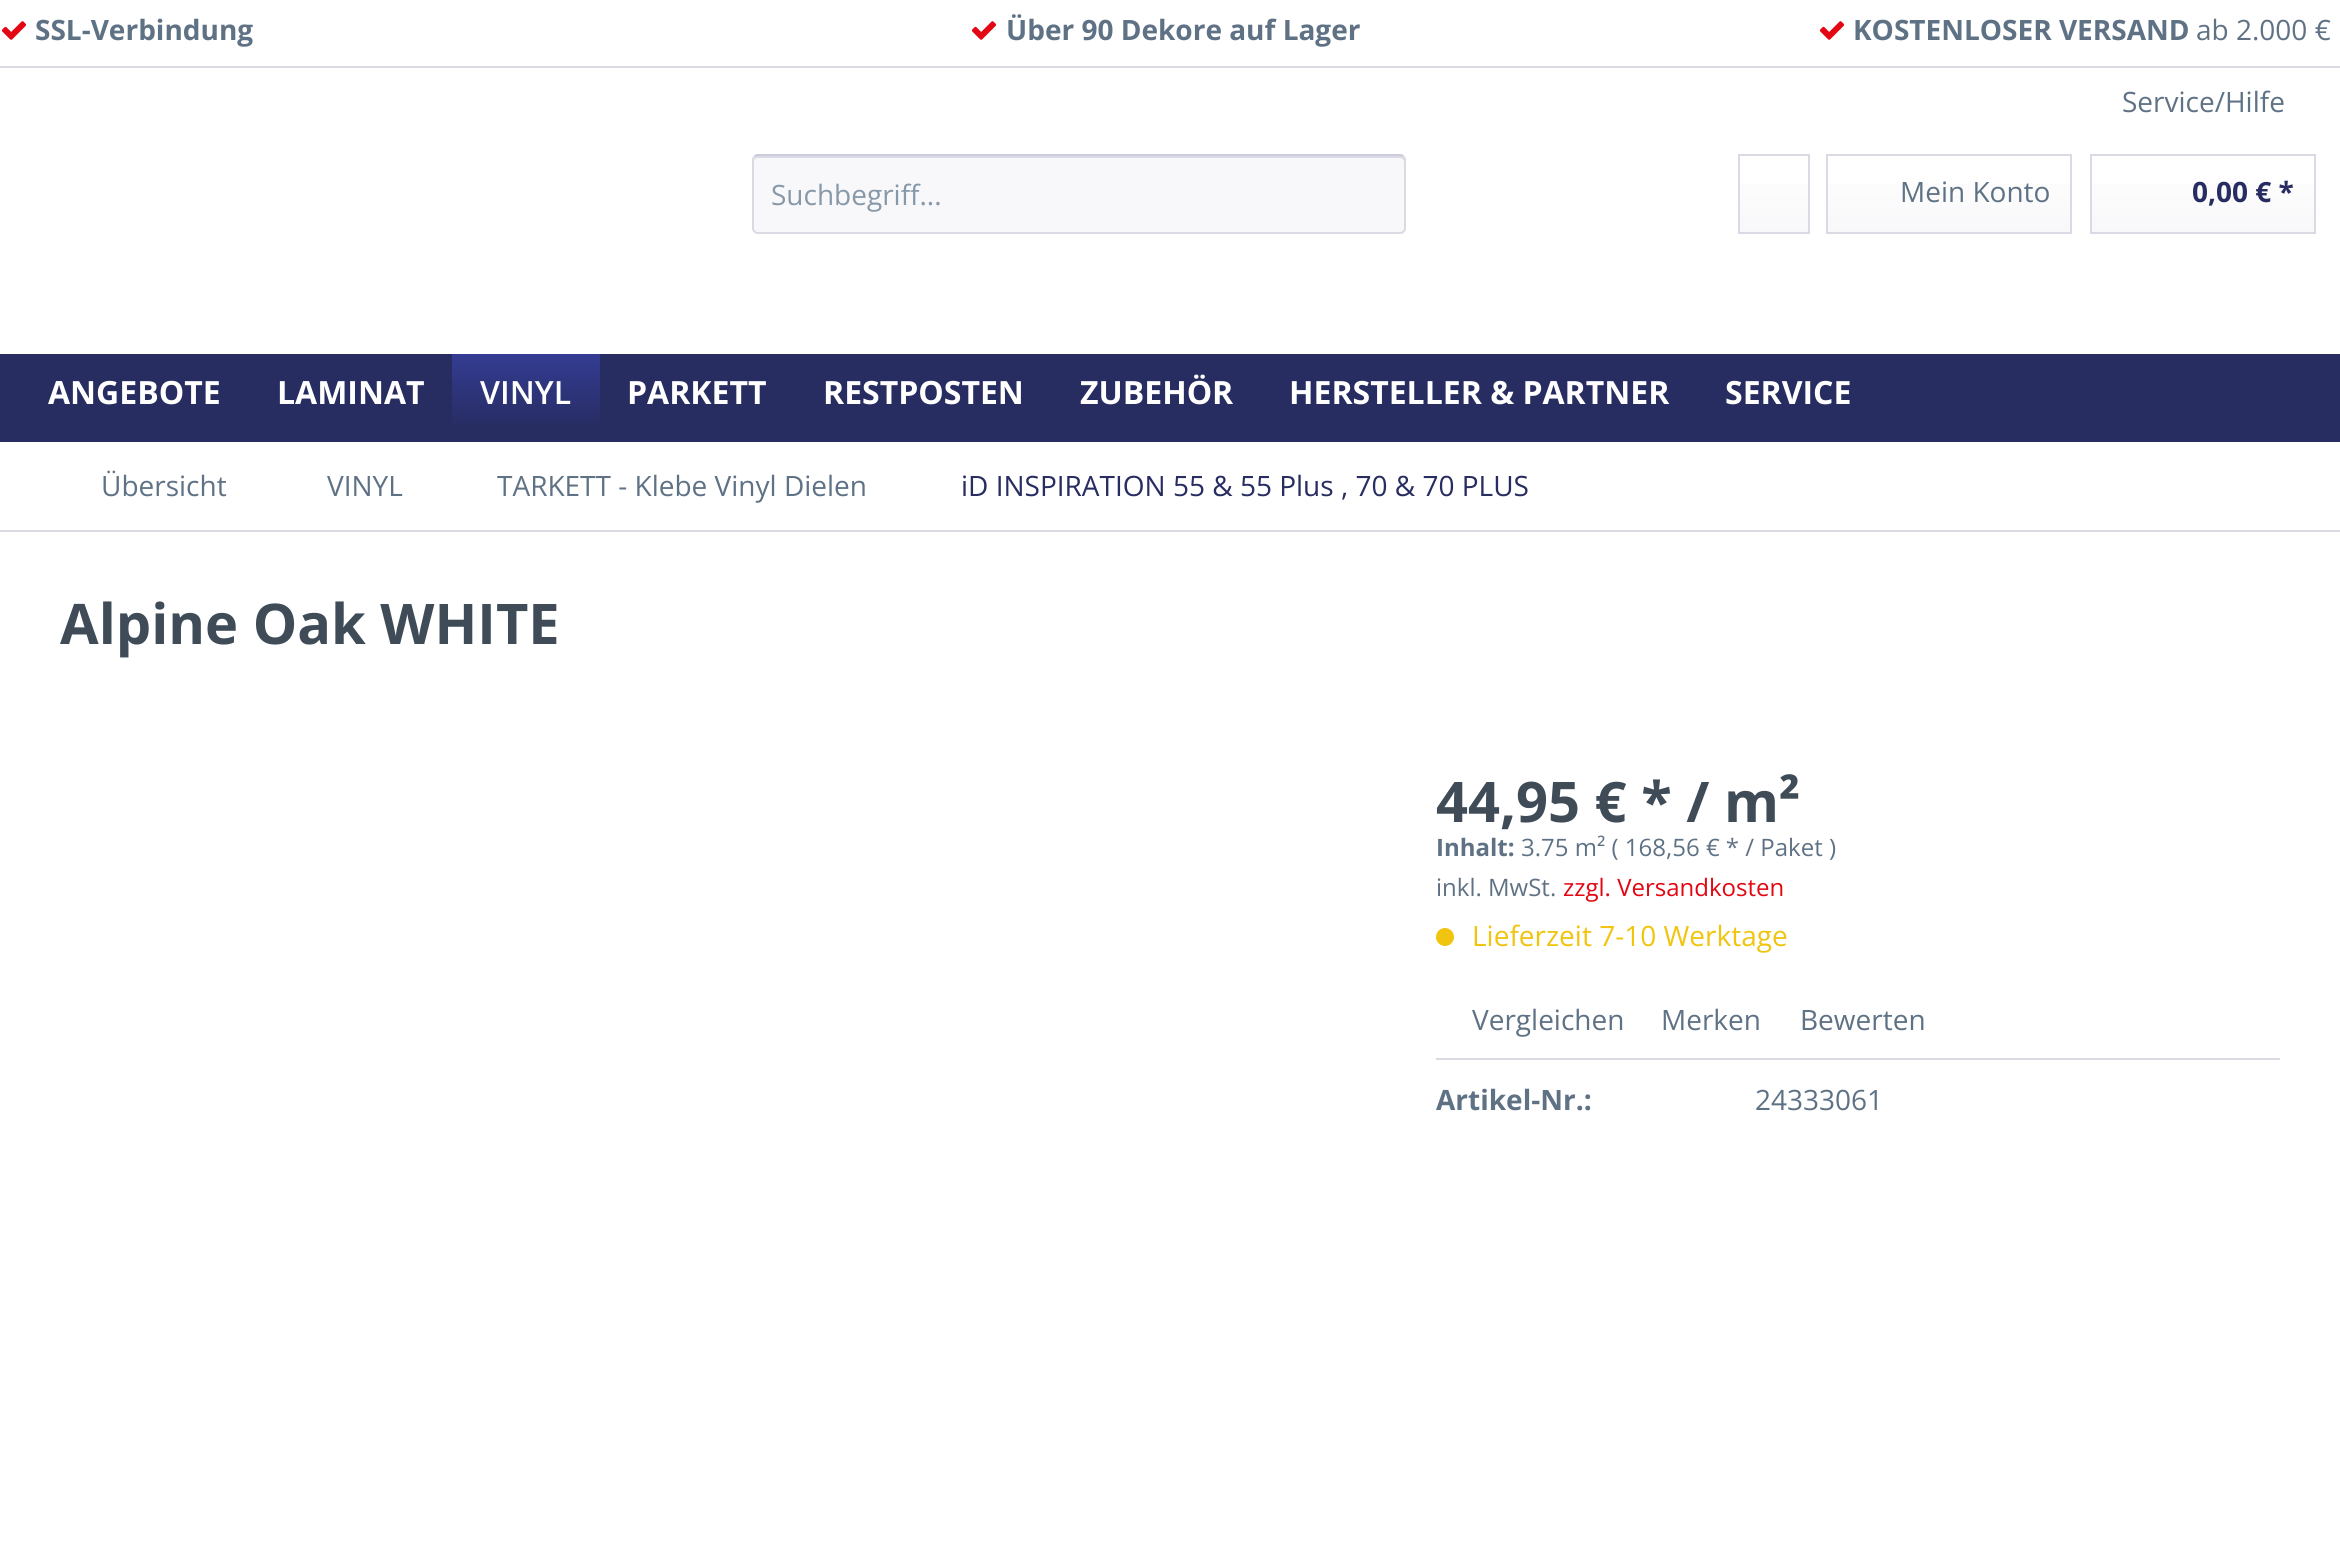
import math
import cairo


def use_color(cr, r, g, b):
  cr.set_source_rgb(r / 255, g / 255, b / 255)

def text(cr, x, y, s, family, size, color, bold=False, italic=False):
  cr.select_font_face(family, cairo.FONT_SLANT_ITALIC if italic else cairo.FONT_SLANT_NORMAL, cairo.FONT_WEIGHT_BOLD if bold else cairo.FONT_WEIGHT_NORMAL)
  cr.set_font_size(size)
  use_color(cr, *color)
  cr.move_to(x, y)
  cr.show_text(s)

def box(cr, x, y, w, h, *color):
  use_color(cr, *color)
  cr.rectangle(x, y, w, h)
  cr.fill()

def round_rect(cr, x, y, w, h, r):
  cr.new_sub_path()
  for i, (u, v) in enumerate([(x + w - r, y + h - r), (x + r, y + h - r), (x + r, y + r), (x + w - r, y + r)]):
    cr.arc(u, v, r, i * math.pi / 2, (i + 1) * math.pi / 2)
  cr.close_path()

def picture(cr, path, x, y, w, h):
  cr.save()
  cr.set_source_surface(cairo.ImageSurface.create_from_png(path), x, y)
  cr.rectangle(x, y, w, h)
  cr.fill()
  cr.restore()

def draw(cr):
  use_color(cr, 255, 255, 255)
  cr.paint()
  box(cr, 0, 66, 2340, 2, 218, 218, 229)
  picture(cr, "img_01.png", 1, 21, 26, 19)
  picture(cr, "img_01.png", 971, 21, 26, 19)
  picture(cr, "img_01.png", 1819, 21, 26, 19)
  use_color(cr, 248, 248, 250)
  round_rect(cr, 752, 154, 654, 80, 6)
  cr.fill()
  use_color(cr, 218, 218, 229)
  cr.new_path()
  cr.move_to(758, 158)
  cr.line_to(1400, 158)
  cr.curve_to(1402, 158, 1404, 160, 1404, 162)
  cr.curve_to(1404, 159, 1404, 156, 1400, 156)
  cr.line_to(756, 156)
  cr.line_to(755, 158)
  cr.curve_to(754, 159, 754, 161, 754, 162)
  cr.curve_to(754, 160, 756, 158, 758, 158)
  cr.close_path()
  cr.fill()
  cr.new_path()
  cr.move_to(754.5, 156.5)
  cr.curve_to(755.5, 155.5, 756.5, 155, 758, 155)
  cr.line_to(1400, 155)
  cr.curve_to(1401.5, 155, 1402.5, 155.5, 1403.5, 156.5)
  use_color(cr, 203, 203, 219)
  cr.stroke()
  cr.new_path()
  cr.move_to(1403.5, 156.5)
  cr.curve_to(1404.5, 157.5, 1405, 158.5, 1405, 160)
  cr.line_to(1405, 228)
  cr.curve_to(1405, 229.5, 1404.5, 230.5, 1403.5, 231.5)
  cr.curve_to(1402.5, 232.5, 1401.5, 233, 1400, 233)
  cr.line_to(758, 233)
  cr.curve_to(756.5, 233, 755.5, 232.5, 754.5, 231.5)
  cr.curve_to(753.5, 230.5, 753, 229.5, 753, 228)
  cr.line_to(753, 160)
  cr.curve_to(753, 158.5, 753.5, 157.5, 754.5, 156.5)
  use_color(cr, 218, 218, 229)
  cr.stroke()
  gradient = cairo.LinearGradient(1774, 156, 1774, 232)
  gradient.add_color_stop_rgba(0, 1, 1, 1, 1)
  gradient.add_color_stop_rgba(1, 0.973, 0.973, 0.98, 1)
  cr.set_source(gradient)
  cr.rectangle(1740, 183, 68, 49)
  cr.fill()
  cr.rectangle(1739, 155, 70, 78)
  use_color(cr, 218, 218, 229)
  cr.stroke()
  gradient = cairo.LinearGradient(1949, 156, 1949, 232)
  gradient.add_color_stop_rgba(0, 1, 1, 1, 1)
  gradient.add_color_stop_rgba(1, 0.973, 0.973, 0.98, 1)
  cr.set_source(gradient)
  cr.rectangle(1828, 183, 242, 49)
  cr.fill()
  cr.rectangle(1827, 155, 244, 78)
  use_color(cr, 218, 218, 229)
  cr.stroke()
  gradient = cairo.LinearGradient(2203, 156, 2203, 232)
  gradient.add_color_stop_rgba(0, 1, 1, 1, 1)
  gradient.add_color_stop_rgba(1, 0.973, 0.973, 0.98, 1)
  cr.set_source(gradient)
  cr.rectangle(2092, 183, 222, 49)
  cr.fill()
  cr.rectangle(2091, 155, 224, 78)
  use_color(cr, 218, 218, 229)
  cr.stroke()
  box(cr, 0, 354, 2340, 88, 39, 44, 97)
  gradient = cairo.LinearGradient(526, 354, 526, 430)
  gradient.add_color_stop_rgba(0, 0.204, 0.235, 0.573, 1)
  gradient.add_color_stop_rgba(1, 0.153, 0.173, 0.38, 1)
  cr.set_source(gradient)
  cr.rectangle(452, 354, 148, 72)
  cr.fill()
  box(cr, 0, 530, 2340, 2, 218, 218, 229)
  use_color(cr, 241, 196, 15)
  cr.arc(1445, 937, 9, 0, 2 * math.pi)
  cr.fill()
  box(cr, 1436, 1058, 844, 2, 218, 218, 229)
  text(cr, 35, 40, "SSL-Verbindung", "Open Sans", 28, (95, 114, 133), bold=True)
  text(cr, 1006, 40, "Über 90 Dekore auf Lager", "Open Sans", 28, (95, 114, 133), bold=True)
  text(cr, 1853, 40, "KOSTENLOSER VERSAND", "Open Sans", 28, (95, 114, 133), bold=True)
  text(cr, 2196, 40, "ab 2.000 €", "Open Sans", 28, (95, 114, 133))
  text(cr, 2122, 112, "Service/Hilfe", "Open Sans", 28, (95, 114, 133))
  text(cr, 771, 205, "Suchbegriff...", "Open Sans", 28, (135, 152, 169))
  text(cr, 1900, 202, "Mein Konto", "Open Sans", 28, (95, 114, 133))
  text(cr, 2192, 202, "0,00 € *", "Open Sans", 28, (39, 44, 97), bold=True)
  text(cr, 48, 404, "ANGEBOTE", "Open Sans", 32, (255, 255, 255), bold=True)
  text(cr, 277, 404, "LAMINAT", "Open Sans", 32, (255, 255, 255), bold=True)
  text(cr, 480, 404, "VINYL", "Open Sans SemiBold", 32, (255, 255, 255))
  text(cr, 627, 404, "PARKETT", "Open Sans", 32, (255, 255, 255), bold=True)
  text(cr, 823, 404, "RESTPOSTEN", "Open Sans", 32, (255, 255, 255), bold=True)
  text(cr, 1080, 404, "ZUBEHÖR", "Open Sans", 32, (255, 255, 255), bold=True)
  text(cr, 1289, 404, "HERSTELLER & PARTNER", "Open Sans", 32, (255, 255, 255), bold=True)
  text(cr, 1725, 404, "SERVICE", "Open Sans", 32, (255, 255, 255), bold=True)
  text(cr, 101, 496, "Übersicht", "Open Sans", 28, (95, 114, 133))
  text(cr, 327, 496, "VINYL", "Open Sans", 28, (95, 114, 133))
  text(cr, 497, 496, "TARKETT - Klebe Vinyl Dielen", "Open Sans", 28, (95, 114, 133))
  text(cr, 961, 496, "iD INSPIRATION 55 & 55 Plus , 70 & 70 PLUS", "Open Sans", 28, (39, 44, 97))
  text(cr, 60, 644, "Alpine Oak WHITE", "Open Sans", 56, (63, 76, 88), bold=True)
  text(cr, 1436, 822, "44,95 € * / m²", "Open Sans", 56, (63, 76, 88), bold=True)
  text(cr, 1436, 856, "Inhalt:", "Open Sans", 24, (95, 114, 133), bold=True)
  text(cr, 1521, 856, "3.75 m² ( 168,56 € * / Paket )", "Open Sans", 24, (95, 114, 133))
  text(cr, 1436, 896, "inkl. MwSt.", "Open Sans", 24, (95, 114, 133))
  text(cr, 1563, 896, "zzgl. Versandkosten", "Open Sans", 24, (227, 6, 19))
  text(cr, 1472, 946, "Lieferzeit 7-10 Werktage", "Open Sans", 28, (241, 196, 15))
  text(cr, 1472, 1030, "Vergleichen", "Open Sans", 28, (95, 114, 133))
  text(cr, 1661, 1030, "Merken", "Open Sans", 28, (95, 114, 133))
  text(cr, 1800, 1030, "Bewerten", "Open Sans", 28, (95, 114, 133))
  text(cr, 1436, 1110, "Artikel-Nr.:", "Open Sans", 28, (95, 114, 133), bold=True)
  text(cr, 1755, 1110, "24333061", "Open Sans", 28, (95, 114, 133))


surface = cairo.ImageSurface(cairo.FORMAT_RGB24, 2340, 1544)
cr = cairo.Context(surface)
options = cairo.FontOptions()
options.set_hint_metrics(cairo.HINT_METRICS_OFF)
options.set_hint_style(cairo.HINT_STYLE_NONE)
cr.set_font_options(options)
cr.set_miter_limit(4)
draw(cr)
surface.write_to_png("out.png")
